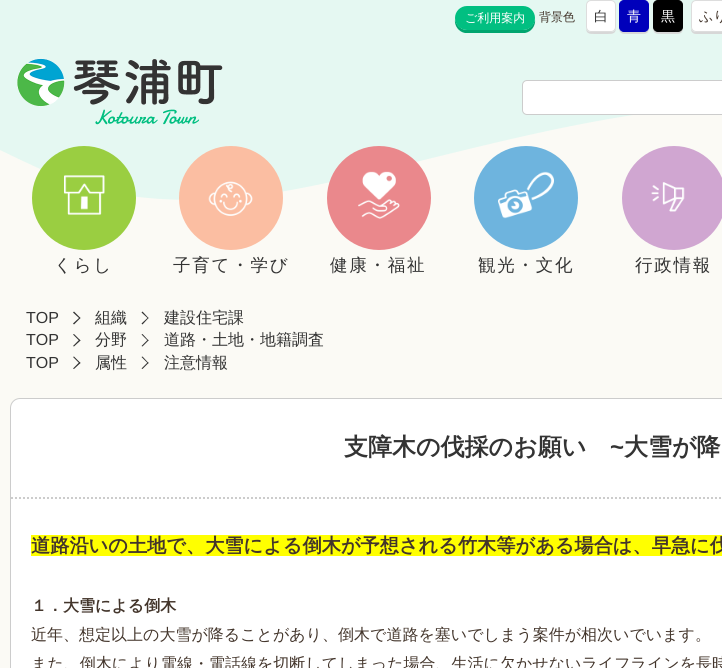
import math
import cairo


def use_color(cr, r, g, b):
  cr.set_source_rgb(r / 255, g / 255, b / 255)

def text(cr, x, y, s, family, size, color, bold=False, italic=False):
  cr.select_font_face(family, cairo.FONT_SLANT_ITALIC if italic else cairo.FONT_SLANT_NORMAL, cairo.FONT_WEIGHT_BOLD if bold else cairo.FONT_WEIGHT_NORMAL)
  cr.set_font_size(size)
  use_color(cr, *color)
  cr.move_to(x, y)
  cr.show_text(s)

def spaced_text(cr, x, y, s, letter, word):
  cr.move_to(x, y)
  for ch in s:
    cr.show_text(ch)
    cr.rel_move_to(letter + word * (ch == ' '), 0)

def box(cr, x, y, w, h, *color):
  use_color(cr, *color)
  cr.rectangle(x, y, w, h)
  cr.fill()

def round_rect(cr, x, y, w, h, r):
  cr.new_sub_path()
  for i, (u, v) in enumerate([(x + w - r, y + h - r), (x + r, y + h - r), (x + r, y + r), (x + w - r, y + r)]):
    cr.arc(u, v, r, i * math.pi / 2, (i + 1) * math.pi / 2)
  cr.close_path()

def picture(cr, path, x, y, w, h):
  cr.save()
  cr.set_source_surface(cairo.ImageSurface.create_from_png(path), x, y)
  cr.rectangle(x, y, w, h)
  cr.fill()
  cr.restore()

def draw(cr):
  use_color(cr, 251, 250, 245)
  cr.paint()
  picture(cr, "img_01.png", 0, 0, 722, 200)
  use_color(cr, 1, 165, 111)
  cr.new_path()
  cr.move_to(455, 19)
  cr.curve_to(454, 26, 459, 32, 465, 33)
  cr.line_to(525, 33)
  cr.curve_to(531, 32, 536, 26, 535, 19)
  cr.curve_to(534, 25, 529, 30, 523, 30)
  cr.line_to(467, 30)
  cr.curve_to(461, 30, 456, 25, 455, 19)
  cr.close_path()
  cr.fill()
  use_color(cr, 1, 191, 129)
  round_rect(cr, 455, 6, 80, 24, 12)
  cr.fill()
  use_color(cr, 215, 215, 215)
  cr.new_path()
  cr.move_to(586, 27)
  cr.curve_to(586, 33.5, 588.5, 34, 594.5, 34)
  cr.line_to(607.5, 34)
  cr.curve_to(613.5, 34, 616, 33.5, 616, 27)
  cr.curve_to(616, 30, 614, 32, 611, 32)
  cr.line_to(591, 32)
  cr.curve_to(588, 32, 586, 30, 586, 27)
  cr.close_path()
  cr.fill()
  use_color(cr, 255, 255, 255)
  round_rect(cr, 586.5, 0.5, 29, 31, 4.5)
  cr.fill_preserve()
  use_color(cr, 221, 221, 221)
  cr.set_line_width(1)
  cr.stroke()
  use_color(cr, 215, 215, 215)
  cr.new_path()
  cr.move_to(619, 27)
  cr.curve_to(619, 33.5, 621.5, 34, 627.5, 34)
  cr.line_to(640.5, 34)
  cr.curve_to(646.5, 34, 649, 33.5, 649, 27)
  cr.curve_to(649, 30, 647, 32, 644, 32)
  cr.line_to(624, 32)
  cr.curve_to(621, 32, 619, 30, 619, 27)
  cr.close_path()
  cr.fill()
  use_color(cr, 0, 0, 187)
  round_rect(cr, 619.5, 0.5, 29, 31, 4.5)
  cr.fill_preserve()
  cr.stroke()
  use_color(cr, 215, 215, 215)
  cr.new_path()
  cr.move_to(653, 27)
  cr.curve_to(653, 33.5, 655.5, 34, 661.5, 34)
  cr.line_to(674.5, 34)
  cr.curve_to(680.5, 34, 683, 33.5, 683, 27)
  cr.curve_to(683, 30, 681, 32, 678, 32)
  cr.line_to(658, 32)
  cr.curve_to(655, 32, 653, 30, 653, 27)
  cr.close_path()
  cr.fill()
  use_color(cr, 0, 0, 0)
  round_rect(cr, 653.5, 0.5, 29, 31, 4.5)
  cr.fill_preserve()
  cr.stroke()
  use_color(cr, 215, 215, 215)
  cr.new_path()
  cr.move_to(691, 27)
  cr.line_to(691, 29)
  cr.curve_to(691, 32, 693, 34, 696, 34)
  cr.line_to(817, 34)
  cr.curve_to(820, 34, 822, 32, 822, 29)
  cr.line_to(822, 27)
  cr.curve_to(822, 30, 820, 32, 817, 32)
  cr.line_to(696, 32)
  cr.curve_to(693, 32, 691, 30, 691, 27)
  cr.close_path()
  cr.fill()
  use_color(cr, 255, 255, 255)
  round_rect(cr, 691.5, 0.5, 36, 31, 4.5)
  cr.fill_preserve()
  use_color(cr, 221, 221, 221)
  cr.stroke()
  picture(cr, "img_02.png", 17, 58, 206, 67)
  use_color(cr, 255, 255, 255)
  round_rect(cr, 522.5, 80.5, 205, 34, 4.5)
  cr.fill_preserve()
  use_color(cr, 204, 204, 204)
  cr.stroke()
  use_color(cr, 154, 206, 65)
  cr.arc(84, 198, 51, 0, 2 * math.pi)
  cr.fill_preserve()
  cr.set_line_width(2)
  cr.stroke()
  picture(cr, "img_03.png", 64, 175, 41, 40)
  use_color(cr, 251, 190, 162)
  cr.arc(231, 198, 51, 0, 2 * math.pi)
  cr.fill_preserve()
  cr.stroke()
  picture(cr, "img_04.png", 208, 181, 45, 35)
  use_color(cr, 234, 136, 140)
  cr.arc(379, 198, 51, 0, 2 * math.pi)
  cr.fill_preserve()
  cr.stroke()
  picture(cr, "img_05.png", 358, 171, 42, 48)
  use_color(cr, 110, 180, 222)
  cr.arc(526, 198, 51, 0, 2 * math.pi)
  cr.fill_preserve()
  cr.stroke()
  picture(cr, "img_06.png", 498, 171, 56, 48)
  use_color(cr, 208, 166, 209)
  cr.arc(674, 198, 51, 0, 2 * math.pi)
  cr.fill_preserve()
  cr.stroke()
  picture(cr, "img_07.png", 651, 182, 34, 30)
  use_color(cr, 51, 51, 51)
  cr.new_path()
  cr.move_to(74, 311.5)
  cr.line_to(80.5, 318)
  cr.line_to(79.5, 318.5)
  cr.line_to(73, 312.5)
  cr.close_path()
  cr.fill()
  cr.new_path()
  cr.move_to(79.5, 317.5)
  cr.line_to(80.5, 318)
  cr.line_to(74, 324.5)
  cr.line_to(73, 323.5)
  cr.close_path()
  cr.fill()
  cr.new_path()
  cr.move_to(142.5, 311.5)
  cr.line_to(148.5, 318)
  cr.line_to(148, 318.5)
  cr.line_to(141.5, 312.5)
  cr.close_path()
  cr.fill()
  cr.new_path()
  cr.move_to(148, 317.5)
  cr.line_to(148.5, 318)
  cr.line_to(142.5, 324.5)
  cr.line_to(141.5, 323.5)
  cr.close_path()
  cr.fill()
  cr.new_path()
  cr.move_to(74, 334)
  cr.line_to(80.5, 340.5)
  cr.line_to(79.5, 341)
  cr.line_to(73, 334.5)
  cr.close_path()
  cr.fill()
  cr.new_path()
  cr.move_to(79.5, 339.5)
  cr.line_to(80.5, 340.5)
  cr.line_to(74, 346.5)
  cr.line_to(73, 346)
  cr.close_path()
  cr.fill()
  cr.new_path()
  cr.move_to(142.5, 334)
  cr.line_to(148.5, 340.5)
  cr.line_to(148, 341)
  cr.line_to(141.5, 334.5)
  cr.close_path()
  cr.fill()
  cr.new_path()
  cr.move_to(148, 339.5)
  cr.line_to(148.5, 340.5)
  cr.line_to(142.5, 346.5)
  cr.line_to(141.5, 346)
  cr.close_path()
  cr.fill()
  cr.new_path()
  cr.move_to(74, 356.5)
  cr.line_to(80.5, 363)
  cr.line_to(79.5, 363.5)
  cr.line_to(73, 357)
  cr.close_path()
  cr.fill()
  cr.new_path()
  cr.move_to(79.5, 362)
  cr.line_to(80.5, 363)
  cr.line_to(74, 369)
  cr.line_to(73, 368.5)
  cr.close_path()
  cr.fill()
  cr.new_path()
  cr.move_to(142.5, 356.5)
  cr.line_to(148.5, 363)
  cr.line_to(148, 363.5)
  cr.line_to(141.5, 357)
  cr.close_path()
  cr.fill()
  cr.new_path()
  cr.move_to(148, 362)
  cr.line_to(148.5, 363)
  cr.line_to(142.5, 369)
  cr.line_to(141.5, 368.5)
  cr.close_path()
  cr.fill()
  use_color(cr, 255, 255, 255)
  round_rect(cr, 10.5, 398.5, 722, 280, 9.5)
  cr.fill_preserve()
  use_color(cr, 204, 204, 204)
  cr.set_line_width(1)
  cr.stroke()
  cr.new_path()
  cr.move_to(11, 498)
  cr.line_to(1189, 498)
  cr.set_line_width(2)
  cr.set_dash([2, 2])
  cr.stroke()
  box(cr, 31, 535, 691, 21, 255, 255, 0)
  text(cr, 465, 22, "ご利用案内", "WenQuanYi Zen Hei Medium", 12, (255, 255, 255))
  text(cr, 539, 21, "背景色", "WenQuanYi Zen Hei Medium", 12, (67, 53, 43))
  text(cr, 594, 21, "白", "WenQuanYi Zen Hei Medium", 14, (51, 51, 51))
  text(cr, 627, 21, "青", "WenQuanYi Zen Hei Medium", 14, (255, 255, 255))
  text(cr, 661, 21, "黒", "WenQuanYi Zen Hei Medium", 14, (255, 255, 255))
  text(cr, 699, 21, "ふり", "WenQuanYi Zen Hei Medium", 14, (67, 53, 43))
  cr.set_font_size(17.5)
  use_color(cr, 51, 51, 51)
  spaced_text(cr, 54, 271, "くらし", 1.75, 0)
  spaced_text(cr, 173, 271, "子育て・学び", 1.75, 0)
  spaced_text(cr, 330, 271, "健康・福祉", 1.75, 0)
  spaced_text(cr, 478, 271, "観光・文化", 1.75, 0)
  spaced_text(cr, 635, 271, "行政情報", 1.75, 0)
  text(cr, 26, 323, "TOP", "Liberation Sans", 16, (51, 51, 51))
  text(cr, 95, 323, "組織", "WenQuanYi Zen Hei Medium", 16, (51, 51, 51))
  text(cr, 164, 323, "建設住宅課", "WenQuanYi Zen Hei Medium", 16, (51, 51, 51))
  text(cr, 26, 345, "TOP", "Liberation Sans", 16, (51, 51, 51))
  text(cr, 95, 345, "分野", "WenQuanYi Zen Hei Medium", 16, (51, 51, 51))
  text(cr, 164, 345, "道路・土地・地籍調査", "WenQuanYi Zen Hei Medium", 16, (51, 51, 51))
  text(cr, 26, 368, "TOP", "Liberation Sans", 16, (51, 51, 51))
  text(cr, 95, 368, "属性", "WenQuanYi Zen Hei Medium", 16, (51, 51, 51))
  text(cr, 164, 368, "注意情報", "WenQuanYi Zen Hei Medium", 16, (51, 51, 51))
  text(cr, 344, 455, "支障木の伐採のお願い", "WenQuanYi Zen Hei", 24, (51, 51, 51), bold=True)
  text(cr, 610, 455, "~", "Liberation Sans", 24, (51, 51, 51), bold=True)
  text(cr, 624, 455, "大雪が降", "WenQuanYi Zen Hei", 24, (51, 51, 51), bold=True)
  text(cr, 31, 552, "道路沿いの土地で、大雪による倒木が予想される竹木等がある場合は、早急に伐", "WenQuanYi Zen Hei", 19.2, (67, 53, 43), bold=True)
  text(cr, 31, 611, "１．大雪による倒木", "WenQuanYi Zen Hei", 16, (67, 53, 43), bold=True)
  text(cr, 31, 640, "近年、想定以上の大雪が降ることがあり、倒木で道路を塞いでしまう案件が相次いでいます。", "WenQuanYi Zen Hei Medium", 16, (67, 53, 43))
  text(cr, 31, 669, "また、倒木により電線・電話線を切断してしまった場合、生活に欠かせないライフラインを長時", "WenQuanYi Zen Hei Medium", 16, (67, 53, 43))


surface = cairo.ImageSurface(cairo.FORMAT_RGB24, 722, 668)
cr = cairo.Context(surface)
options = cairo.FontOptions()
options.set_hint_metrics(cairo.HINT_METRICS_OFF)
options.set_hint_style(cairo.HINT_STYLE_NONE)
cr.set_font_options(options)
cr.set_miter_limit(4)
draw(cr)
surface.write_to_png("out.png")
